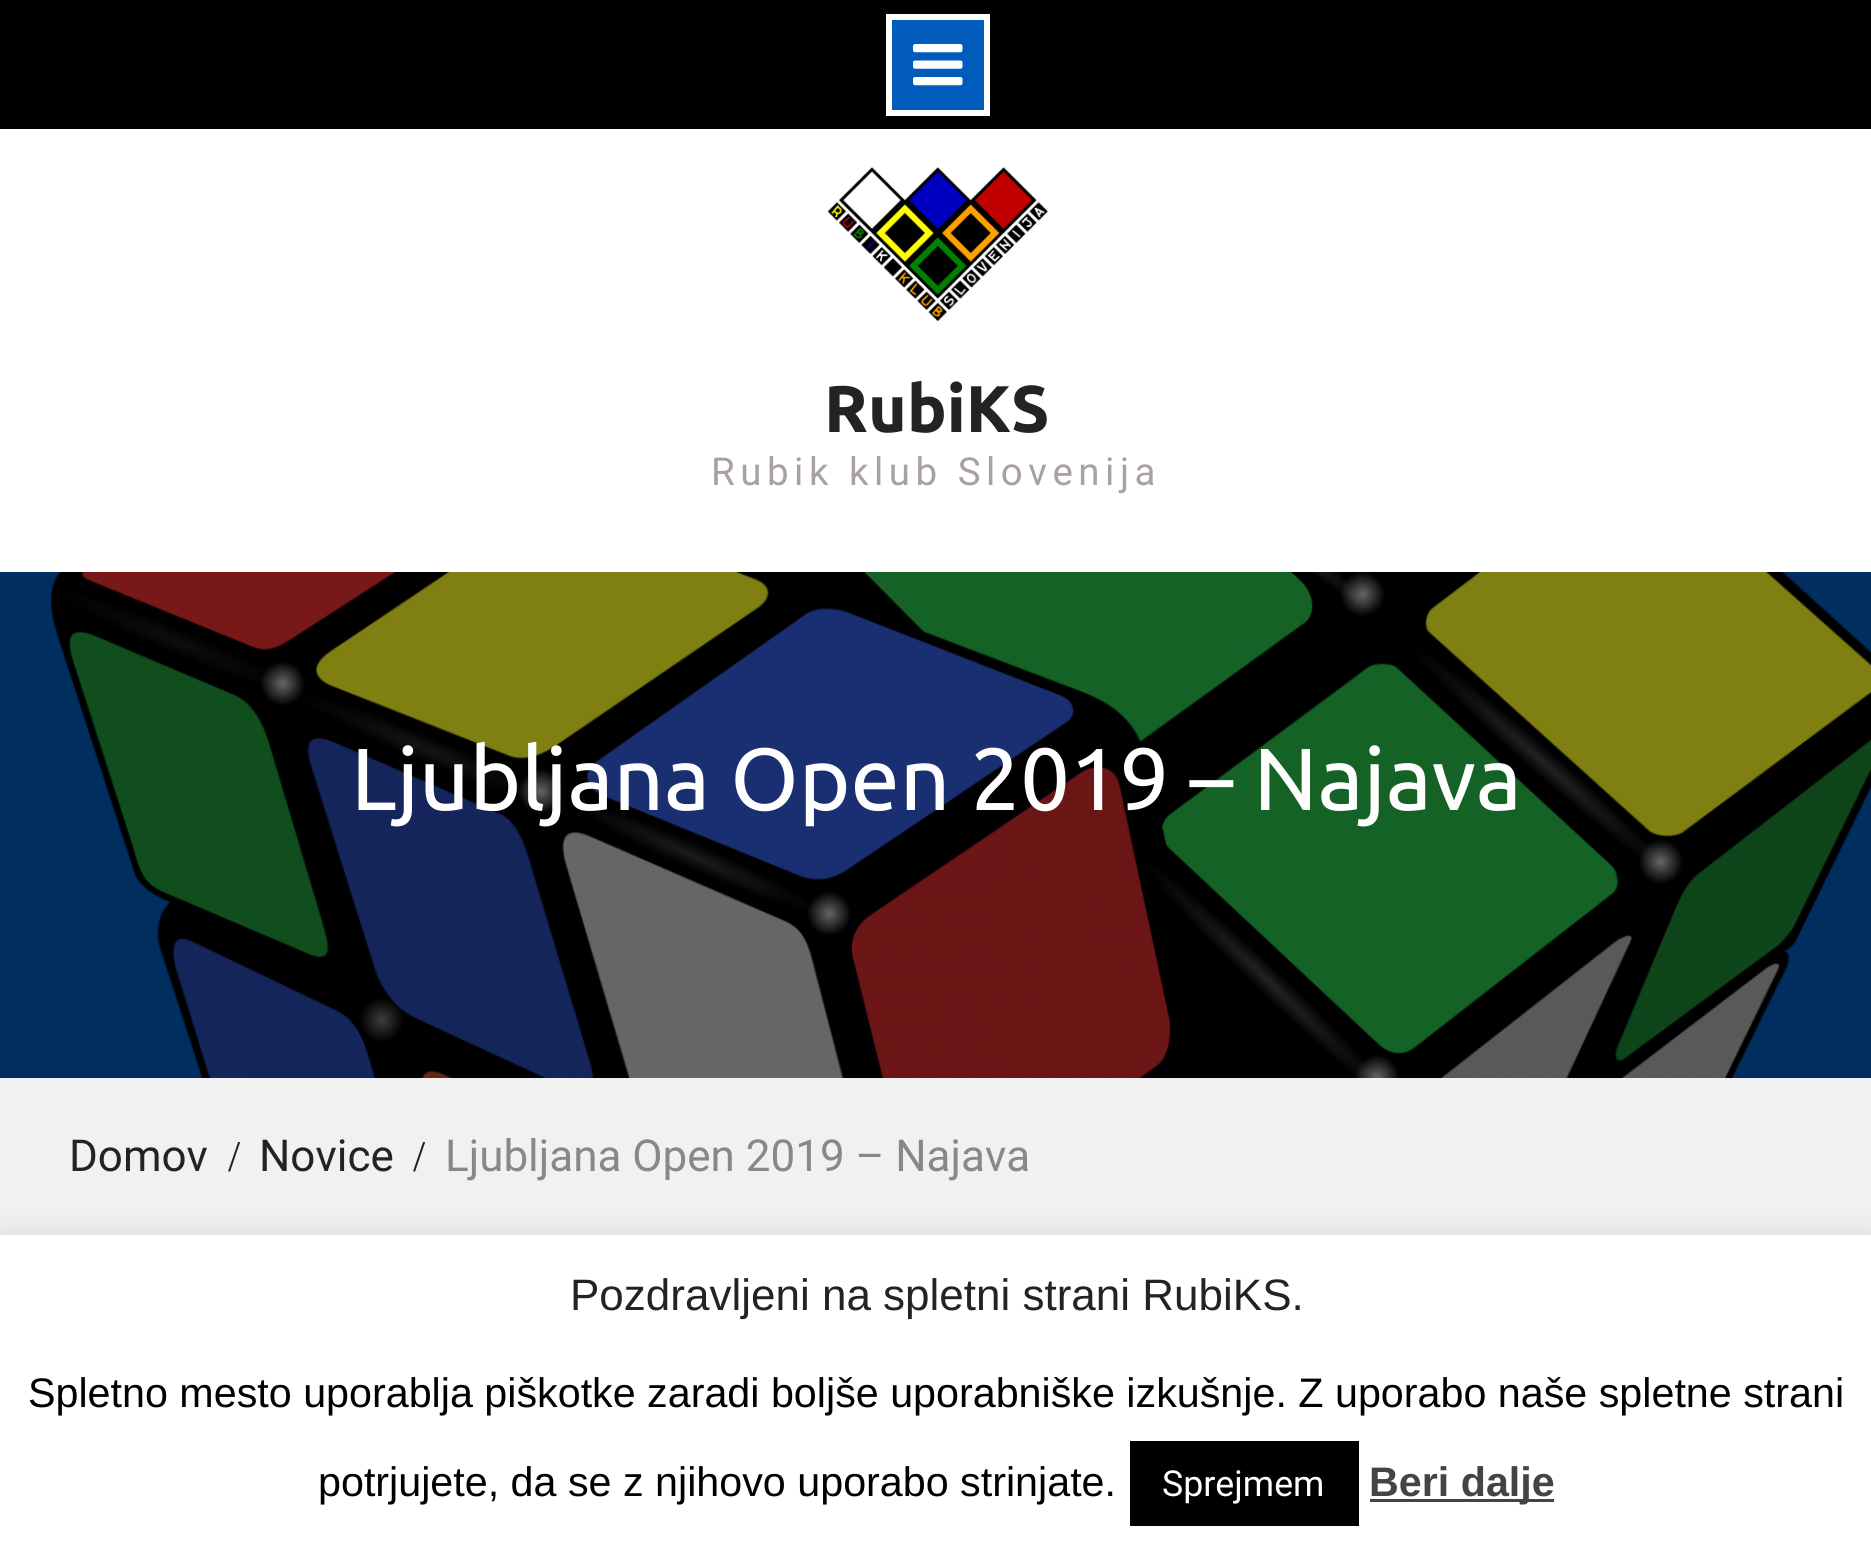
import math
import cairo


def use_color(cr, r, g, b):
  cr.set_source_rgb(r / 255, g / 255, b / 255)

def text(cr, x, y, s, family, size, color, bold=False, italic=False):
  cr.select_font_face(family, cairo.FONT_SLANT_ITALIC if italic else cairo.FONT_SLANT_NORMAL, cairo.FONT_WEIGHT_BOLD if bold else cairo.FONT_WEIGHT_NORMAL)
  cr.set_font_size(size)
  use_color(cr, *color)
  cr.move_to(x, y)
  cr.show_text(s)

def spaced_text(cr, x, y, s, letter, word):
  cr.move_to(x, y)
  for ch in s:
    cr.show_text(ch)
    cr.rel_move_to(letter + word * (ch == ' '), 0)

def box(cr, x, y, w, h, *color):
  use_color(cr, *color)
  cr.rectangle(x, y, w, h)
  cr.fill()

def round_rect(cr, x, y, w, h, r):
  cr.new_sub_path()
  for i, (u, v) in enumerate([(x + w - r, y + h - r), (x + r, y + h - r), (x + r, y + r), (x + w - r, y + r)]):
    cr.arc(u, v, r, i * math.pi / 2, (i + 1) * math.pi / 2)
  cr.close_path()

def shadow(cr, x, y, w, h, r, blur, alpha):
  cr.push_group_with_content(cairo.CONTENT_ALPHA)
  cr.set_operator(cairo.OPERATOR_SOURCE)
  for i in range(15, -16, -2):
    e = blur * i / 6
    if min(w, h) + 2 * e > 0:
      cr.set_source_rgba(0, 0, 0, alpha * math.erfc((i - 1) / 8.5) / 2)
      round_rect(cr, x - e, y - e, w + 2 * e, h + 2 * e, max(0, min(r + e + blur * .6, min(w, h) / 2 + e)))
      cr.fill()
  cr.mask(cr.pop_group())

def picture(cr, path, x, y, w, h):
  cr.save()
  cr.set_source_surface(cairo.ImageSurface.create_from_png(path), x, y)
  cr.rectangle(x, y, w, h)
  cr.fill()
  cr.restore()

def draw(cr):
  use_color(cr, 255, 255, 255)
  cr.paint()
  box(cr, 0, 0, 1871, 129, 0, 0, 0)
  use_color(cr, 0, 91, 188)
  cr.rectangle(889, 17, 98, 96)
  cr.fill_preserve()
  use_color(cr, 255, 255, 254)
  cr.set_line_width(6)
  cr.stroke()
  picture(cr, "img_01.png", 913, 44, 50, 42)
  picture(cr, "img_02.png", 827, 166, 221, 156)
  box(cr, 0, 572, 1871, 506, 0, 46, 94)
  picture(cr, "img_03.png", 50, 572, 1821, 506)
  box(cr, 0, 1078, 1871, 157, 241, 241, 241)
  use_color(cr, 172, 171, 171)
  shadow(cr, 0, 1232, 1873, 325, 0, 14, 0.3)
  box(cr, 0, 1235, 1871, 323, 255, 255, 255)
  box(cr, 1130, 1441, 229, 85, 0, 0, 0)
  box(cr, 1370, 1499, 184, 3, 68, 68, 68)
  text(cr, 824, 432, "RubiKS", "Ubuntu", 66, (35, 35, 35), bold=True)
  cr.select_font_face("Roboto")
  cr.set_font_size(38.5)
  use_color(cr, 171, 160, 160)
  spaced_text(cr, 711, 485, "Rubik klub Slovenija", 5.5, 0)
  text(cr, 351, 810, "Ljubljana Open 2019 – Najava", "Ubuntu", 88, (255, 255, 255))
  text(cr, 69, 1171, "Domov", "Roboto", 44, (35, 35, 35))
  text(cr, 228, 1171, "/", "Liberation Serif", 44, (35, 35, 35))
  text(cr, 259, 1171, "Novice", "Roboto", 44, (35, 35, 35))
  text(cr, 413, 1171, "/", "Liberation Serif", 44, (35, 35, 35))
  text(cr, 445, 1171, "Ljubljana Open 2019 – Najava", "Roboto", 44, (136, 136, 136))
  text(cr, 570, 1310, "Pozdravljeni na spletni strani RubiKS.", "Liberation Sans", 44, (35, 35, 35))
  text(cr, 28, 1407, "Spletno mesto uporablja piškotke zaradi boljše uporabniške izkušnje. Z uporabo naše spletne strani", "Liberation Sans", 41.25, (0, 0, 0))
  text(cr, 318, 1496, "potrjujete, da se z njihovo uporabo strinjate.", "Liberation Sans", 41.25, (0, 0, 0))
  text(cr, 1162, 1496, "Sprejmem", "Roboto", 35.75, (255, 255, 255))
  text(cr, 1369, 1496, "Beri dalje", "Liberation Sans", 41.25, (68, 68, 68), bold=True)


surface = cairo.ImageSurface(cairo.FORMAT_RGB24, 1871, 1558)
cr = cairo.Context(surface)
options = cairo.FontOptions()
options.set_hint_metrics(cairo.HINT_METRICS_OFF)
options.set_hint_style(cairo.HINT_STYLE_NONE)
cr.set_font_options(options)
cr.set_miter_limit(4)
draw(cr)
surface.write_to_png("out.png")
